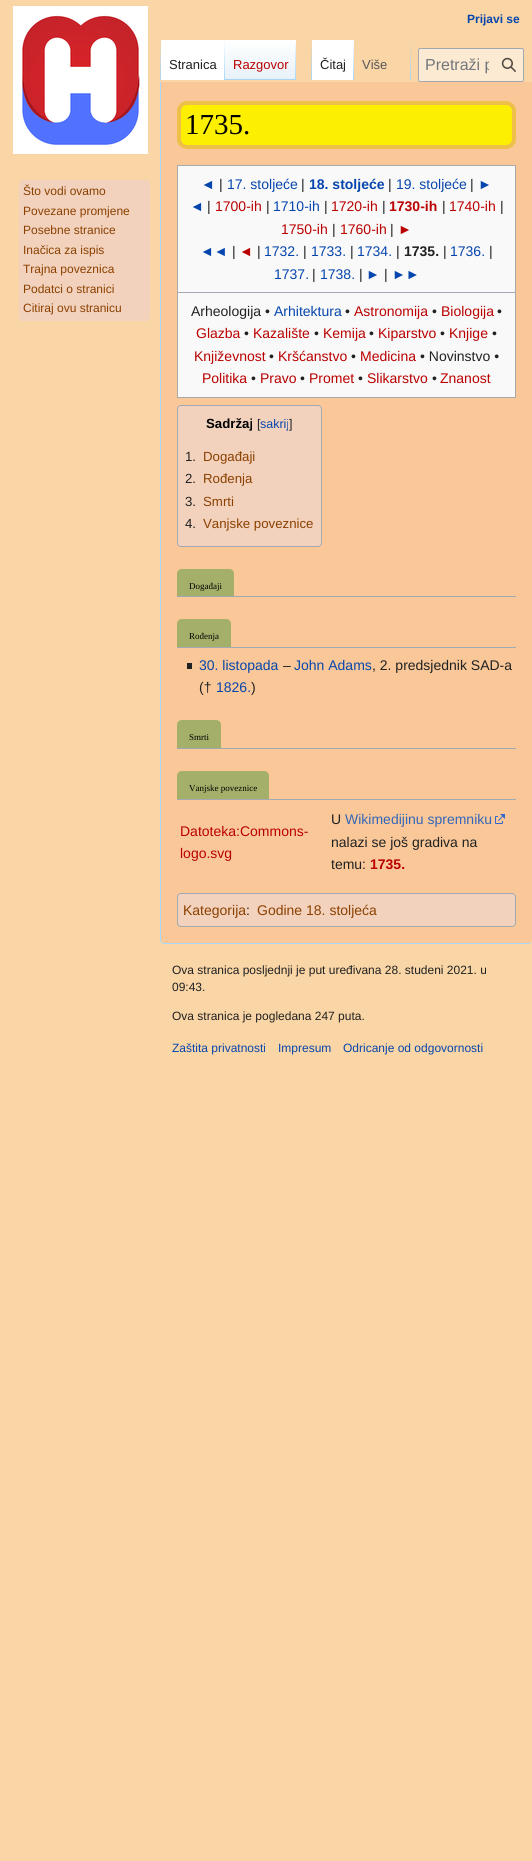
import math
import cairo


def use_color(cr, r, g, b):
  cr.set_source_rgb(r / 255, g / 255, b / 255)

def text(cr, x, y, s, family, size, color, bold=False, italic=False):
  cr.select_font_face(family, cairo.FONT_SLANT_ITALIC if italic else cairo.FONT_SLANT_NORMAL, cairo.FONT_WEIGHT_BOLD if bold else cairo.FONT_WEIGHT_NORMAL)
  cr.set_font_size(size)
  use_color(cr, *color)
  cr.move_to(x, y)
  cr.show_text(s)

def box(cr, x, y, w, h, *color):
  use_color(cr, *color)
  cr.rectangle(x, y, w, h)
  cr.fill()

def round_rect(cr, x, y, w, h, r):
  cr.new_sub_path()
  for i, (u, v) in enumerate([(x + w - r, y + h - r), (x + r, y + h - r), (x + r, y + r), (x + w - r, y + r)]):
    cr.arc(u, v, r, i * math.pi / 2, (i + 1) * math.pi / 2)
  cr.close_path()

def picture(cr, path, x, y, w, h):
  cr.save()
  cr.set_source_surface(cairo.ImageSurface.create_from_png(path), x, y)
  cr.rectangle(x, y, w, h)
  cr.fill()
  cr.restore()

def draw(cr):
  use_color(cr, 250, 213, 165)
  cr.paint()
  use_color(cr, 250, 200, 152)
  cr.new_path()
  cr.move_to(164, 80)
  cr.line_to(528, 80)
  cr.curve_to(530, 80, 532, 81, 532, 83)
  cr.line_to(532, 940)
  cr.curve_to(532, 942, 530, 943, 528, 943)
  cr.line_to(164, 943)
  cr.curve_to(162, 943, 161, 942, 161, 940)
  cr.line_to(161, 83)
  cr.curve_to(161, 81, 162, 80, 164, 80)
  cr.close_path()
  cr.fill()
  use_color(cr, 167, 215, 249)
  cr.set_fill_rule(cairo.FILL_RULE_EVEN_ODD)
  cr.new_path()
  cr.move_to(164, 79)
  cr.line_to(528, 79)
  cr.curve_to(530, 79, 532, 81, 532, 83)
  cr.line_to(532, 940)
  cr.curve_to(532, 942, 530, 944, 528, 944)
  cr.line_to(164, 944)
  cr.curve_to(162, 944, 160, 942, 160, 940)
  cr.line_to(160, 83)
  cr.curve_to(160, 81, 162, 79, 164, 79)
  cr.close_path()
  cr.move_to(164, 80)
  cr.line_to(528, 80)
  cr.curve_to(530, 80, 532, 81, 532, 83)
  cr.line_to(532, 940)
  cr.curve_to(532, 942, 530, 943, 528, 943)
  cr.line_to(164, 943)
  cr.curve_to(162, 943, 161, 942, 161, 940)
  cr.line_to(161, 83)
  cr.curve_to(161, 81, 162, 80, 164, 80)
  cr.close_path()
  cr.fill()
  box(cr, 160, 79, 372, 3, 250, 213, 165)
  gradient = cairo.LinearGradient(161, 40, 161, 80)
  gradient.add_color_stop_rgba(0, 0.98, 0.835, 0.647, 1)
  gradient.add_color_stop_rgba(1, 0.655, 0.843, 0.976, 1)
  cr.set_source(gradient)
  cr.rectangle(160, 40, 1, 40)
  cr.fill()
  box(cr, 161, 40, 63, 40, 255, 255, 255)
  gradient = cairo.LinearGradient(225, 40, 225, 80)
  gradient.add_color_stop_rgba(0, 1, 1, 1, 1)
  gradient.add_color_stop_rgba(1, 0.655, 0.843, 0.976, 1)
  cr.set_source(gradient)
  cr.rectangle(224, 40, 1, 40)
  cr.fill()
  gradient = cairo.LinearGradient(261, 80, 261, 40)
  gradient.add_color_stop_rgba(0, 0.467, 0.757, 0.965, 1)
  gradient.add_color_stop_rgba(0.03, 0.91, 0.949, 0.973, 1)
  gradient.add_color_stop_rgba(1, 1, 1, 1, 1)
  cr.set_source(gradient)
  cr.rectangle(225, 40, 71, 40)
  cr.fill()
  gradient = cairo.LinearGradient(296, 40, 296, 80)
  gradient.add_color_stop_rgba(0, 0.655, 0.843, 0.976, 0)
  gradient.add_color_stop_rgba(1, 0.655, 0.843, 0.976, 1)
  cr.set_source(gradient)
  cr.rectangle(295, 40, 1, 40)
  cr.fill()
  gradient = cairo.LinearGradient(312, 40, 312, 80)
  gradient.add_color_stop_rgba(0, 0.98, 0.835, 0.647, 1)
  gradient.add_color_stop_rgba(1, 0.655, 0.843, 0.976, 1)
  cr.set_source(gradient)
  cr.rectangle(311, 40, 1, 40)
  cr.fill()
  box(cr, 312, 40, 41, 40, 255, 255, 255)
  gradient = cairo.LinearGradient(354, 40, 354, 80)
  gradient.add_color_stop_rgba(0, 1, 1, 1, 1)
  gradient.add_color_stop_rgba(1, 0.655, 0.843, 0.976, 1)
  cr.set_source(gradient)
  cr.rectangle(353, 40, 1, 40)
  cr.fill()
  gradient = cairo.LinearGradient(411, 40, 411, 80)
  gradient.add_color_stop_rgba(0, 0.98, 0.835, 0.647, 1)
  gradient.add_color_stop_rgba(1, 0.655, 0.843, 0.976, 1)
  cr.set_source(gradient)
  cr.rectangle(410, 40, 1, 40)
  cr.fill()
  use_color(cr, 253, 234, 210)
  round_rect(cr, 418.5, 48.5, 105, 33, 1.5)
  cr.fill_preserve()
  use_color(cr, 162, 169, 177)
  cr.set_line_width(1)
  cr.stroke()
  picture(cr, "img_01.png", 501, 57, 15, 15)
  picture(cr, "img_02.png", 13, 6, 135, 148)
  use_color(cr, 242, 210, 189)
  round_rect(cr, 19, 180, 131, 141, 4)
  cr.fill()
  use_color(cr, 252, 240, 0)
  round_rect(cr, 179, 103, 335, 44, 8)
  cr.fill_preserve()
  use_color(cr, 238, 191, 73)
  cr.set_line_width(4)
  cr.stroke()
  use_color(cr, 249, 249, 249)
  cr.rectangle(177.5, 165.5, 338, 232)
  cr.fill_preserve()
  use_color(cr, 170, 170, 170)
  cr.set_line_width(1)
  cr.stroke()
  box(cr, 178, 292, 337, 1, 162, 169, 177)
  use_color(cr, 242, 210, 189)
  round_rect(cr, 177.5, 405.5, 144, 141, 3.5)
  cr.fill_preserve()
  use_color(cr, 162, 169, 177)
  cr.stroke()
  box(cr, 177, 596, 339, 1, 162, 169, 177)
  use_color(cr, 164, 176, 105)
  cr.new_path()
  cr.move_to(182, 569)
  cr.line_to(229, 569)
  cr.curve_to(232, 569, 234, 571, 234, 574)
  cr.line_to(234, 596)
  cr.line_to(177, 596)
  cr.line_to(177, 574)
  cr.curve_to(177, 571, 179, 569, 182, 569)
  cr.close_path()
  cr.fill()
  box(cr, 177, 647, 339, 1, 162, 169, 177)
  use_color(cr, 164, 176, 105)
  cr.new_path()
  cr.move_to(182, 619)
  cr.line_to(226, 619)
  cr.curve_to(229, 619, 231, 621, 231, 624)
  cr.line_to(231, 647)
  cr.line_to(177, 647)
  cr.line_to(177, 624)
  cr.curve_to(177, 621, 179, 619, 182, 619)
  cr.close_path()
  cr.fill()
  box(cr, 187, 663, 5, 6, 32, 33, 34)
  box(cr, 177, 748, 339, 1, 162, 169, 177)
  use_color(cr, 164, 176, 105)
  cr.new_path()
  cr.move_to(182, 720)
  cr.line_to(216, 720)
  cr.curve_to(219, 720, 221, 722, 221, 725)
  cr.line_to(221, 748)
  cr.line_to(177, 748)
  cr.line_to(177, 725)
  cr.curve_to(177, 722, 179, 720, 182, 720)
  cr.close_path()
  cr.fill()
  box(cr, 177, 799, 339, 1, 162, 169, 177)
  use_color(cr, 164, 176, 105)
  cr.new_path()
  cr.move_to(182, 771)
  cr.line_to(264, 771)
  cr.curve_to(267, 771, 269, 773, 269, 776)
  cr.line_to(269, 799)
  cr.line_to(177, 799)
  cr.line_to(177, 776)
  cr.curve_to(177, 773, 179, 771, 182, 771)
  cr.close_path()
  cr.fill()
  picture(cr, "img_03.png", 495, 814, 10, 10)
  use_color(cr, 242, 210, 189)
  round_rect(cr, 177.5, 893.5, 338, 33, 3.5)
  cr.fill_preserve()
  use_color(cr, 162, 169, 177)
  cr.stroke()
  text(cr, 467, 23, "Prijavi se", "Liberation Sans", 12, (6, 69, 173), bold=True)
  text(cr, 169, 69, "Stranica", "Liberation Sans", 13, (32, 33, 34))
  text(cr, 233, 69, "Razgovor", "Liberation Sans", 13, (186, 0, 0))
  text(cr, 320, 69, "Čitaj", "Liberation Sans", 13, (32, 33, 34))
  text(cr, 362, 69, "Više", "Liberation Sans", 13, (84, 89, 93))
  cr.save()
  cr.set_fill_rule(cairo.FILL_RULE_WINDING)
  cr.rectangle(425, 56, 64, 18)
  cr.clip()
  text(cr, 425, 70, "Pretraži p", "Liberation Sans", 16, (114, 119, 125))
  cr.restore()
  text(cr, 23, 195, "Što vodi ovamo", "Liberation Sans", 12, (139, 64, 0))
  text(cr, 23, 215, "Povezane promjene", "Liberation Sans", 12, (139, 64, 0))
  text(cr, 23, 234, "Posebne stranice", "Liberation Sans", 12, (139, 64, 0))
  text(cr, 23, 254, "Inačica za ispis", "Liberation Sans", 12, (139, 64, 0))
  text(cr, 23, 273, "Trajna poveznica", "Liberation Sans", 12, (139, 64, 0))
  text(cr, 23, 293, "Podatci o stranici", "Liberation Sans", 12, (139, 64, 0))
  text(cr, 23, 312, "Citiraj ovu stranicu", "Liberation Sans", 12, (139, 64, 0))
  text(cr, 185, 134, "1735.", "Liberation Serif", 29, (0, 0, 0))
  text(cr, 201, 189, "◄", "Liberation Sans", 14, (6, 69, 173))
  text(cr, 219, 189, "|", "Liberation Sans", 14, (32, 33, 34))
  text(cr, 227, 189, "17. stoljeće", "Liberation Sans", 14, (6, 69, 173))
  text(cr, 301, 189, "|", "Liberation Sans", 14, (32, 33, 34))
  text(cr, 309, 189, "18. stoljeće", "Liberation Sans", 14, (6, 69, 173), bold=True)
  text(cr, 388, 189, "|", "Liberation Sans", 14, (32, 33, 34))
  text(cr, 396, 189, "19. stoljeće", "Liberation Sans", 14, (6, 69, 173))
  text(cr, 470, 189, "|", "Liberation Sans", 14, (32, 33, 34))
  text(cr, 478, 189, "►", "Liberation Sans", 14, (6, 69, 173))
  text(cr, 190, 211, "◄", "Liberation Sans", 14, (6, 69, 173))
  text(cr, 207, 211, "|", "Liberation Sans", 14, (32, 33, 34))
  text(cr, 215, 211, "1700-ih", "Liberation Sans", 14, (186, 0, 0))
  text(cr, 266, 211, "|", "Liberation Sans", 14, (32, 33, 34))
  text(cr, 273, 211, "1710-ih", "Liberation Sans", 14, (6, 69, 173))
  text(cr, 324, 211, "|", "Liberation Sans", 14, (32, 33, 34))
  text(cr, 331, 211, "1720-ih", "Liberation Sans", 14, (186, 0, 0))
  text(cr, 382, 211, "|", "Liberation Sans", 14, (32, 33, 34))
  text(cr, 389, 211, "1730-ih", "Liberation Sans", 14, (186, 0, 0), bold=True)
  text(cr, 442, 211, "|", "Liberation Sans", 14, (32, 33, 34))
  text(cr, 449, 211, "1740-ih", "Liberation Sans", 14, (186, 0, 0))
  text(cr, 500, 211, "|", "Liberation Sans", 14, (32, 33, 34))
  text(cr, 281, 234, "1750-ih", "Liberation Sans", 14, (186, 0, 0))
  text(cr, 332, 234, "|", "Liberation Sans", 14, (32, 33, 34))
  text(cr, 340, 234, "1760-ih", "Liberation Sans", 14, (186, 0, 0))
  text(cr, 390, 234, "|", "Liberation Sans", 14, (32, 33, 34))
  text(cr, 398, 234, "►", "Liberation Sans", 14, (186, 0, 0))
  text(cr, 200, 256, "◄◄", "Liberation Sans", 14, (6, 69, 173))
  text(cr, 232, 256, "|", "Liberation Sans", 14, (32, 33, 34))
  text(cr, 239, 256, "◄", "Liberation Sans", 14, (186, 0, 0))
  text(cr, 257, 256, "|", "Liberation Sans", 14, (32, 33, 34))
  text(cr, 264, 256, "1732.", "Liberation Sans", 14, (6, 69, 173))
  text(cr, 303, 256, "|", "Liberation Sans", 14, (32, 33, 34))
  text(cr, 311, 256, "1733.", "Liberation Sans", 14, (6, 69, 173))
  text(cr, 350, 256, "|", "Liberation Sans", 14, (32, 33, 34))
  text(cr, 357, 256, "1734.", "Liberation Sans", 14, (6, 69, 173))
  text(cr, 396, 256, "|", "Liberation Sans", 14, (32, 33, 34))
  text(cr, 404, 256, "1735.", "Liberation Sans", 14, (32, 33, 34), bold=True)
  text(cr, 443, 256, "|", "Liberation Sans", 14, (32, 33, 34))
  text(cr, 450, 256, "1736.", "Liberation Sans", 14, (6, 69, 173))
  text(cr, 489, 256, "|", "Liberation Sans", 14, (32, 33, 34))
  text(cr, 274, 279, "1737.", "Liberation Sans", 14, (6, 69, 173))
  text(cr, 312, 279, "|", "Liberation Sans", 14, (32, 33, 34))
  text(cr, 320, 279, "1738.", "Liberation Sans", 14, (6, 69, 173))
  text(cr, 359, 279, "|", "Liberation Sans", 14, (32, 33, 34))
  text(cr, 366, 279, "►", "Liberation Sans", 14, (6, 69, 173))
  text(cr, 384, 279, "|", "Liberation Sans", 14, (32, 33, 34))
  text(cr, 392, 279, "►►", "Liberation Sans", 14, (6, 69, 173))
  text(cr, 191, 316, "Arheologija •", "Liberation Sans", 14, (32, 33, 34))
  text(cr, 274, 316, "Arhitektura", "Liberation Sans", 14, (6, 69, 173))
  text(cr, 345, 316, "•", "Liberation Sans", 14, (32, 33, 34))
  text(cr, 354, 316, "Astronomija", "Liberation Sans", 14, (186, 0, 0))
  text(cr, 432, 316, "•", "Liberation Sans", 14, (32, 33, 34))
  text(cr, 441, 316, "Biologija", "Liberation Sans", 14, (186, 0, 0))
  text(cr, 497, 316, "•", "Liberation Sans", 14, (32, 33, 34))
  text(cr, 196, 338, "Glazba", "Liberation Sans", 14, (186, 0, 0))
  text(cr, 244, 338, "•", "Liberation Sans", 14, (32, 33, 34))
  text(cr, 253, 338, "Kazalište", "Liberation Sans", 14, (186, 0, 0))
  text(cr, 314, 338, "•", "Liberation Sans", 14, (32, 33, 34))
  text(cr, 323, 338, "Kemija", "Liberation Sans", 14, (186, 0, 0))
  text(cr, 369, 338, "•", "Liberation Sans", 14, (32, 33, 34))
  text(cr, 378, 338, "Kiparstvo", "Liberation Sans", 14, (186, 0, 0))
  text(cr, 440, 338, "•", "Liberation Sans", 14, (32, 33, 34))
  text(cr, 449, 338, "Knjige", "Liberation Sans", 14, (186, 0, 0))
  text(cr, 492, 338, "•", "Liberation Sans", 14, (32, 33, 34))
  text(cr, 194, 361, "Književnost", "Liberation Sans", 14, (186, 0, 0))
  text(cr, 269, 361, "•", "Liberation Sans", 14, (32, 33, 34))
  text(cr, 278, 361, "Kršćanstvo", "Liberation Sans", 14, (186, 0, 0))
  text(cr, 351, 361, "•", "Liberation Sans", 14, (32, 33, 34))
  text(cr, 360, 361, "Medicina", "Liberation Sans", 14, (186, 0, 0))
  text(cr, 420, 361, "• Novinstvo •", "Liberation Sans", 14, (32, 33, 34))
  text(cr, 202, 383, "Politika", "Liberation Sans", 14, (186, 0, 0))
  text(cr, 251, 383, "•", "Liberation Sans", 14, (32, 33, 34))
  text(cr, 260, 383, "Pravo", "Liberation Sans", 14, (186, 0, 0))
  text(cr, 300, 383, "•", "Liberation Sans", 14, (32, 33, 34))
  text(cr, 309, 383, "Promet", "Liberation Sans", 14, (186, 0, 0))
  text(cr, 358, 383, "•", "Liberation Sans", 14, (32, 33, 34))
  text(cr, 367, 383, "Slikarstvo", "Liberation Sans", 14, (186, 0, 0))
  text(cr, 432, 383, "•", "Liberation Sans", 14, (32, 33, 34))
  text(cr, 440, 383, "Znanost", "Liberation Sans", 14, (186, 0, 0))
  text(cr, 206, 428, "Sadržaj", "Liberation Sans", 13.25, (0, 0, 0), bold=True)
  text(cr, 257, 428, "[", "Liberation Sans", 12.5, (32, 33, 34))
  text(cr, 260, 428, "sakrij", "Liberation Sans", 12.5, (6, 69, 173))
  text(cr, 289, 428, "]", "Liberation Sans", 12.5, (32, 33, 34))
  text(cr, 185, 461, "1.", "Liberation Sans", 13.25, (32, 33, 34))
  text(cr, 203, 461, "Događaji", "Liberation Sans", 13.25, (139, 64, 0))
  text(cr, 185, 483, "2.", "Liberation Sans", 13.25, (32, 33, 34))
  text(cr, 203, 483, "Rođenja", "Liberation Sans", 13.25, (139, 64, 0))
  text(cr, 185, 506, "3.", "Liberation Sans", 13.25, (32, 33, 34))
  text(cr, 203, 506, "Smrti", "Liberation Sans", 13.25, (139, 64, 0))
  text(cr, 185, 528, "4.", "Liberation Sans", 13.25, (32, 33, 34))
  text(cr, 203, 528, "Vanjske poveznice", "Liberation Sans", 13.25, (139, 64, 0))
  text(cr, 189, 589, "Događaji", "Liberation Serif", 9, (0, 0, 0))
  text(cr, 189, 639, "Rođenja", "Liberation Serif", 9, (0, 0, 0))
  text(cr, 199, 670, "30. listopada", "Liberation Sans", 14, (6, 69, 173))
  text(cr, 283, 670, "–", "Liberation Sans", 14, (32, 33, 34))
  text(cr, 294, 670, "John Adams", "Liberation Sans", 14, (6, 69, 173))
  text(cr, 372, 670, ", 2. predsjednik SAD-a", "Liberation Sans", 14, (32, 33, 34))
  text(cr, 199, 692, "(†", "Liberation Sans", 14, (32, 33, 34))
  text(cr, 216, 692, "1826.", "Liberation Sans", 14, (6, 69, 173))
  text(cr, 251, 692, ")", "Liberation Sans", 14, (32, 33, 34))
  text(cr, 189, 740, "Smrti", "Liberation Serif", 9, (0, 0, 0))
  text(cr, 189, 791, "Vanjske poveznice", "Liberation Serif", 9, (0, 0, 0))
  text(cr, 180, 836, "Datoteka:Commons-", "Liberation Sans", 14, (186, 0, 0))
  text(cr, 180, 858, "logo.svg", "Liberation Sans", 14, (186, 0, 0))
  text(cr, 331, 824, "U", "Liberation Sans", 14, (32, 33, 34))
  text(cr, 345, 824, "Wikimedijinu spremniku", "Liberation Sans", 14, (51, 102, 187))
  text(cr, 331, 847, "nalazi se još gradiva na", "Liberation Sans", 14, (32, 33, 34))
  text(cr, 331, 869, "temu:", "Liberation Sans", 14, (32, 33, 34))
  text(cr, 370, 869, "1735.", "Liberation Sans", 14, (186, 0, 0), bold=True)
  text(cr, 183, 915, "Kategorija", "Liberation Sans", 14, (139, 64, 0))
  text(cr, 246, 915, ":", "Liberation Sans", 14, (32, 33, 34))
  text(cr, 257, 915, "Godine 18. stoljeća", "Liberation Sans", 14, (139, 64, 0))
  text(cr, 172, 974, "Ova stranica posljednji je put uređivana 28. studeni 2021. u", "Liberation Sans", 12, (32, 33, 34))
  text(cr, 172, 991, "09:43.", "Liberation Sans", 12, (32, 33, 34))
  text(cr, 172, 1020, "Ova stranica je pogledana 247 puta.", "Liberation Sans", 12, (32, 33, 34))
  text(cr, 172, 1052, "Zaštita privatnosti", "Liberation Sans", 12, (6, 69, 173))
  text(cr, 278, 1052, "Impresum", "Liberation Sans", 12, (6, 69, 173))
  text(cr, 343, 1052, "Odricanje od odgovornosti", "Liberation Sans", 12, (6, 69, 173))


surface = cairo.ImageSurface(cairo.FORMAT_RGB24, 532, 1861)
cr = cairo.Context(surface)
options = cairo.FontOptions()
options.set_hint_metrics(cairo.HINT_METRICS_OFF)
options.set_hint_style(cairo.HINT_STYLE_NONE)
cr.set_font_options(options)
cr.set_miter_limit(4)
draw(cr)
surface.write_to_png("out.png")
